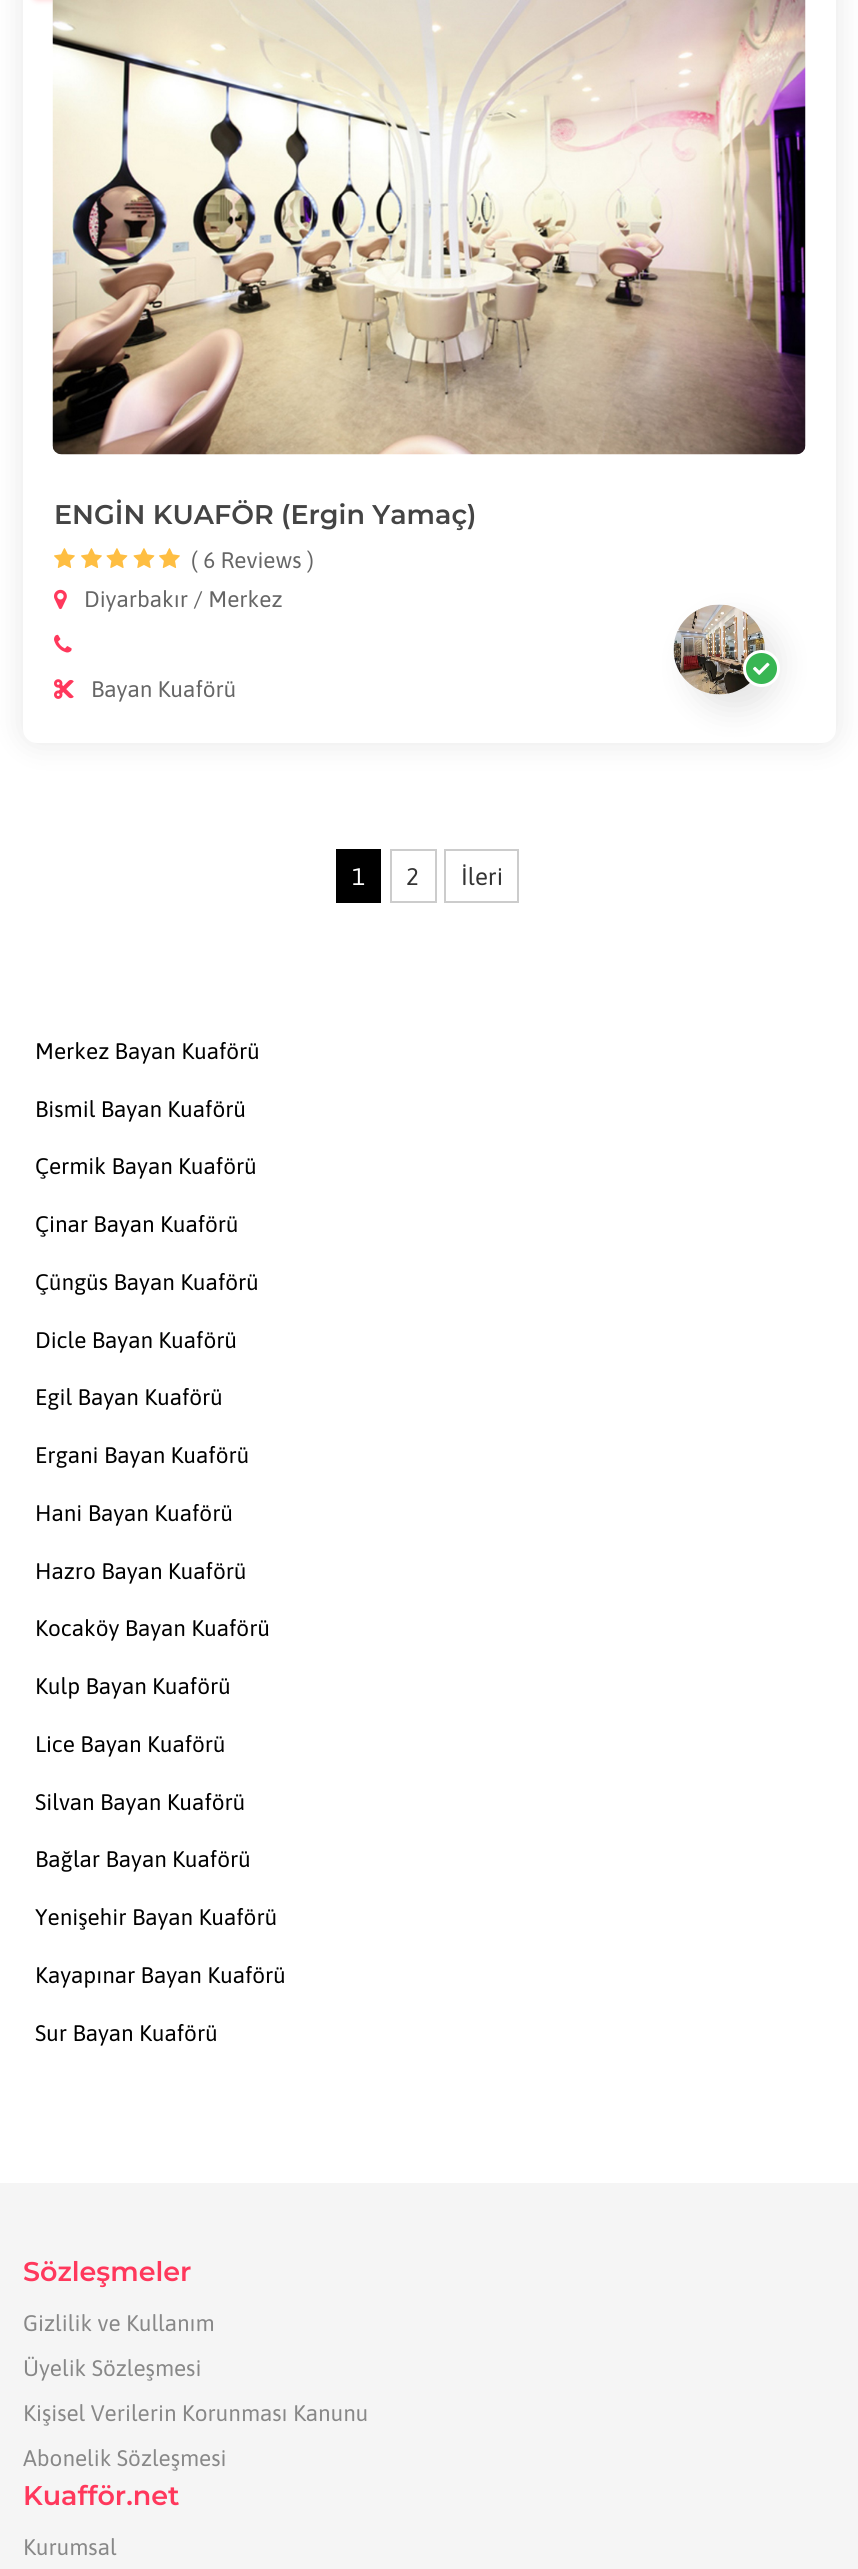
import math
import cairo


def use_color(cr, r, g, b):
  cr.set_source_rgb(r / 255, g / 255, b / 255)

def text(cr, x, y, s, family, size, color, bold=False, italic=False):
  cr.select_font_face(family, cairo.FONT_SLANT_ITALIC if italic else cairo.FONT_SLANT_NORMAL, cairo.FONT_WEIGHT_BOLD if bold else cairo.FONT_WEIGHT_NORMAL)
  cr.set_font_size(size)
  use_color(cr, *color)
  cr.move_to(x, y)
  cr.show_text(s)

def box(cr, x, y, w, h, *color):
  use_color(cr, *color)
  cr.rectangle(x, y, w, h)
  cr.fill()

def round_rect(cr, x, y, w, h, r):
  cr.new_sub_path()
  for i, (u, v) in enumerate([(x + w - r, y + h - r), (x + r, y + h - r), (x + r, y + r), (x + w - r, y + r)]):
    cr.arc(u, v, r, i * math.pi / 2, (i + 1) * math.pi / 2)
  cr.close_path()

def shadow(cr, x, y, w, h, r, blur, alpha):
  cr.push_group_with_content(cairo.CONTENT_ALPHA)
  cr.set_operator(cairo.OPERATOR_SOURCE)
  for i in range(15, -16, -2):
    e = blur * i / 6
    if min(w, h) + 2 * e > 0:
      cr.set_source_rgba(0, 0, 0, alpha * math.erfc((i - 1) / 8.5) / 2)
      round_rect(cr, x - e, y - e, w + 2 * e, h + 2 * e, max(0, min(r + e + blur * .6, min(w, h) / 2 + e)))
      cr.fill()
  cr.mask(cr.pop_group())

def picture(cr, path, x, y, w, h):
  cr.save()
  cr.set_source_surface(cairo.ImageSurface.create_from_png(path), x, y)
  cr.rectangle(x, y, w, h)
  cr.fill()
  cr.restore()

def draw(cr):
  use_color(cr, 255, 255, 255)
  cr.paint()
  use_color(cr, 0, 0, 0)
  shadow(cr, 23, -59, 813, 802, 14, 15, 0.1)
  use_color(cr, 255, 255, 255)
  round_rect(cr, 23, -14, 813, 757, 14)
  cr.fill()
  use_color(cr, 255, 90, 95)
  shadow(cr, 32, -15, 750, 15, 6, 3, 0.3)
  picture(cr, "img_01.png", 52, 0, 754, 455)
  picture(cr, "img_02.png", 54, 548, 21, 20)
  picture(cr, "img_02.png", 81, 548, 21, 20)
  picture(cr, "img_03.png", 106, 548, 22, 20)
  picture(cr, "img_03.png", 133, 548, 22, 20)
  picture(cr, "img_02.png", 159, 548, 21, 20)
  picture(cr, "img_04.png", 54, 589, 13, 21)
  use_color(cr, 0, 0, 0)
  shadow(cr, 689, 620, 91, 90, 45, 15, 0.1)
  picture(cr, "img_05.png", 673, 604, 92, 91)
  use_color(cr, 56, 182, 83)
  cr.arc(761.5, 668.5, 17, 0, 2 * math.pi)
  cr.fill_preserve()
  use_color(cr, 255, 255, 255)
  cr.set_line_width(3)
  cr.stroke()
  picture(cr, "img_06.png", 753, 662, 17, 13)
  picture(cr, "img_07.png", 54, 634, 18, 19)
  picture(cr, "img_08.png", 54, 679, 20, 20)
  box(cr, 336, 849, 45, 54, 0, 0, 0)
  cr.rectangle(391, 850, 45, 52)
  use_color(cr, 204, 204, 204)
  cr.set_line_width(2)
  cr.stroke()
  cr.rectangle(445, 850, 73, 52)
  cr.stroke()
  box(cr, 0, 2183, 858, 386, 245, 245, 245)
  text(cr, 54, 524, "ENGİN KUAFÖR (Ergin Yamaç)", "Montserrat SemiBold", 27, (68, 68, 68))
  text(cr, 191, 568, "( 6 Reviews )", "Asap", 22.5, (102, 102, 102))
  text(cr, 84, 607, "Diyarbakır / Merkez", "Asap", 22.5, (102, 102, 102))
  text(cr, 91, 697, "Bayan Kuaförü", "Asap", 22.5, (102, 102, 102))
  text(cr, 352, 885, "1", "Asap", 24, (255, 255, 255))
  text(cr, 406, 885, "2", "Asap", 24, (51, 51, 51))
  text(cr, 461, 885, "İleri", "Asap", 24, (51, 51, 51))
  text(cr, 35, 1059, "Merkez Bayan Kuaförü", "Asap", 22.5, (0, 0, 0))
  text(cr, 35, 1117, "Bismil Bayan Kuaförü", "Asap", 22.5, (0, 0, 0))
  text(cr, 35, 1174, "Çermik Bayan Kuaförü", "Asap", 22.5, (0, 0, 0))
  text(cr, 35, 1232, "Çinar Bayan Kuaförü", "Asap", 22.5, (0, 0, 0))
  text(cr, 35, 1290, "Çüngüs Bayan Kuaförü", "Asap", 22.5, (0, 0, 0))
  text(cr, 35, 1348, "Dicle Bayan Kuaförü", "Asap", 22.5, (0, 0, 0))
  text(cr, 35, 1405, "Egil Bayan Kuaförü", "Asap", 22.5, (0, 0, 0))
  text(cr, 35, 1463, "Ergani Bayan Kuaförü", "Asap", 22.5, (0, 0, 0))
  text(cr, 35, 1521, "Hani Bayan Kuaförü", "Asap", 22.5, (0, 0, 0))
  text(cr, 35, 1579, "Hazro Bayan Kuaförü", "Asap", 22.5, (0, 0, 0))
  text(cr, 35, 1636, "Kocaköy Bayan Kuaförü", "Asap", 22.5, (0, 0, 0))
  text(cr, 35, 1694, "Kulp Bayan Kuaförü", "Asap", 22.5, (0, 0, 0))
  text(cr, 35, 1752, "Lice Bayan Kuaförü", "Asap", 22.5, (0, 0, 0))
  text(cr, 35, 1810, "Silvan Bayan Kuaförü", "Asap", 22.5, (0, 0, 0))
  text(cr, 35, 1867, "Bağlar Bayan Kuaförü", "Asap", 22.5, (0, 0, 0))
  text(cr, 35, 1925, "Yenişehir Bayan Kuaförü", "Asap", 22.5, (0, 0, 0))
  text(cr, 35, 1983, "Kayapınar Bayan Kuaförü", "Asap", 22.5, (0, 0, 0))
  text(cr, 35, 2041, "Sur Bayan Kuaförü", "Asap", 22.5, (0, 0, 0))
  text(cr, 23, 2281, "Sözleşmeler", "Montserrat SemiBold", 27, (255, 56, 92))
  text(cr, 23, 2331, "Gizlilik ve Kullanım", "Asap", 22.5, (136, 136, 136))
  text(cr, 23, 2376, "Üyelik Sözleşmesi", "Asap", 22.5, (136, 136, 136))
  text(cr, 23, 2421, "Kişisel Verilerin Korunması Kanunu", "Asap", 22.5, (136, 136, 136))
  text(cr, 23, 2466, "Abonelik Sözleşmesi", "Asap", 22.5, (136, 136, 136))
  text(cr, 23, 2505, "Kuafför.net", "Montserrat SemiBold", 27, (255, 56, 92))
  text(cr, 23, 2555, "Kurumsal", "Asap", 22.5, (136, 136, 136))


surface = cairo.ImageSurface(cairo.FORMAT_RGB24, 858, 2569)
cr = cairo.Context(surface)
options = cairo.FontOptions()
options.set_hint_metrics(cairo.HINT_METRICS_OFF)
options.set_hint_style(cairo.HINT_STYLE_NONE)
cr.set_font_options(options)
cr.set_miter_limit(4)
draw(cr)
surface.write_to_png("out.png")
